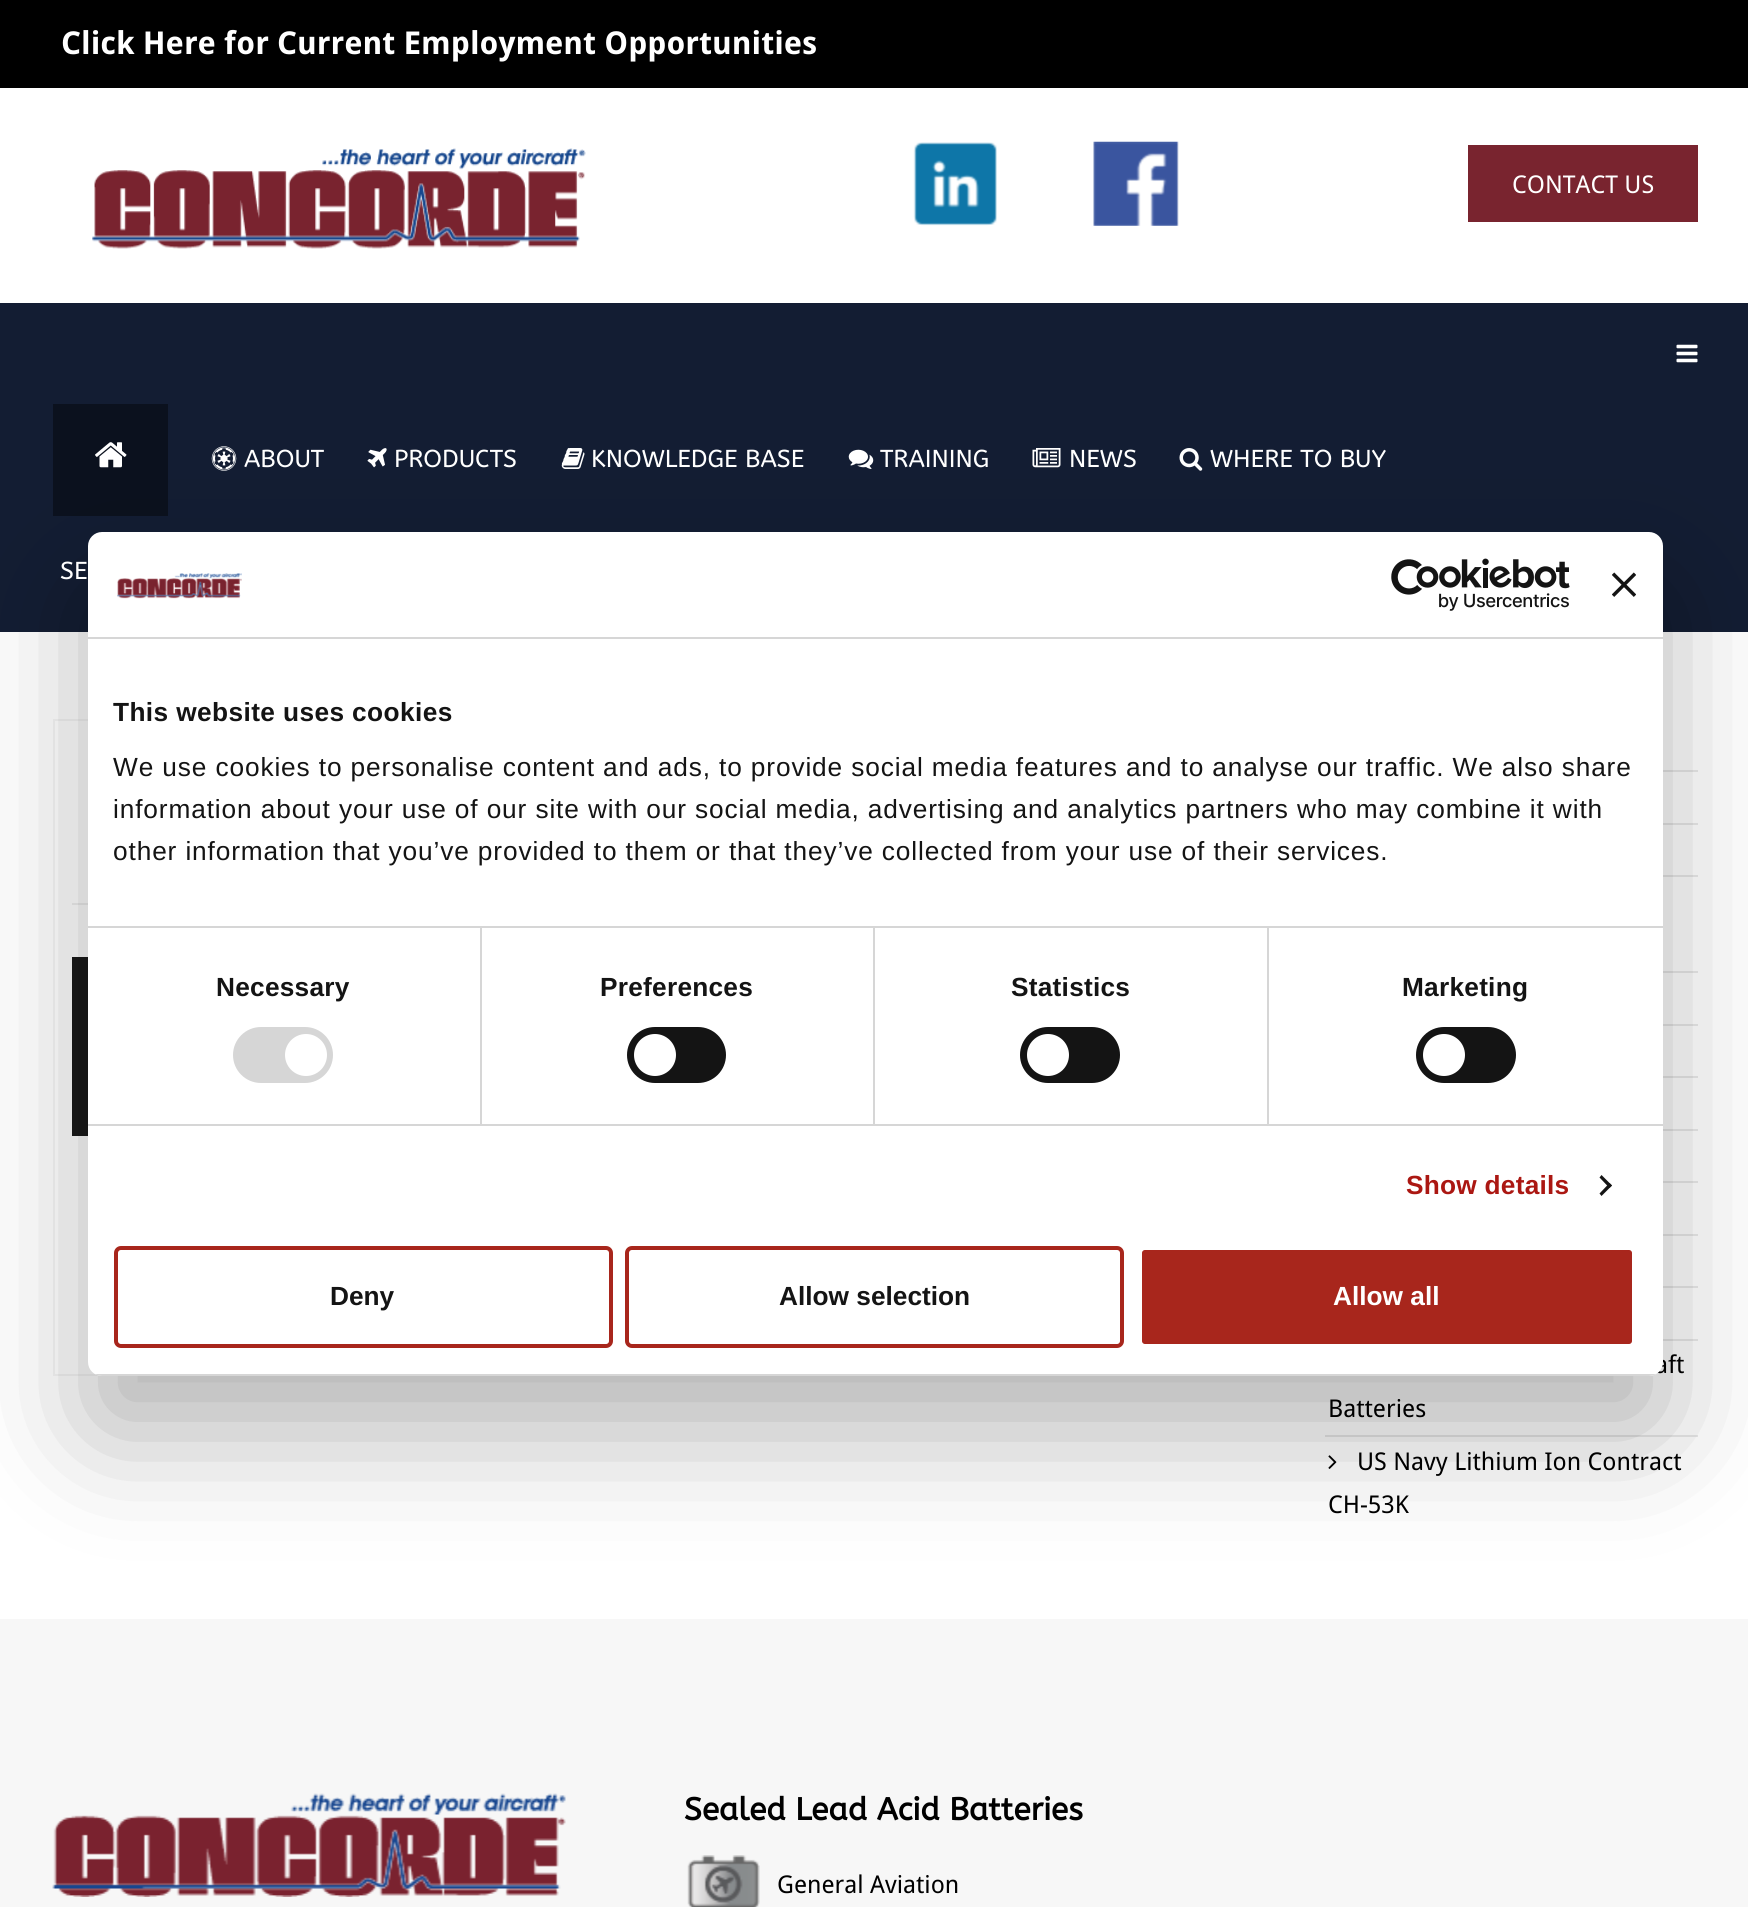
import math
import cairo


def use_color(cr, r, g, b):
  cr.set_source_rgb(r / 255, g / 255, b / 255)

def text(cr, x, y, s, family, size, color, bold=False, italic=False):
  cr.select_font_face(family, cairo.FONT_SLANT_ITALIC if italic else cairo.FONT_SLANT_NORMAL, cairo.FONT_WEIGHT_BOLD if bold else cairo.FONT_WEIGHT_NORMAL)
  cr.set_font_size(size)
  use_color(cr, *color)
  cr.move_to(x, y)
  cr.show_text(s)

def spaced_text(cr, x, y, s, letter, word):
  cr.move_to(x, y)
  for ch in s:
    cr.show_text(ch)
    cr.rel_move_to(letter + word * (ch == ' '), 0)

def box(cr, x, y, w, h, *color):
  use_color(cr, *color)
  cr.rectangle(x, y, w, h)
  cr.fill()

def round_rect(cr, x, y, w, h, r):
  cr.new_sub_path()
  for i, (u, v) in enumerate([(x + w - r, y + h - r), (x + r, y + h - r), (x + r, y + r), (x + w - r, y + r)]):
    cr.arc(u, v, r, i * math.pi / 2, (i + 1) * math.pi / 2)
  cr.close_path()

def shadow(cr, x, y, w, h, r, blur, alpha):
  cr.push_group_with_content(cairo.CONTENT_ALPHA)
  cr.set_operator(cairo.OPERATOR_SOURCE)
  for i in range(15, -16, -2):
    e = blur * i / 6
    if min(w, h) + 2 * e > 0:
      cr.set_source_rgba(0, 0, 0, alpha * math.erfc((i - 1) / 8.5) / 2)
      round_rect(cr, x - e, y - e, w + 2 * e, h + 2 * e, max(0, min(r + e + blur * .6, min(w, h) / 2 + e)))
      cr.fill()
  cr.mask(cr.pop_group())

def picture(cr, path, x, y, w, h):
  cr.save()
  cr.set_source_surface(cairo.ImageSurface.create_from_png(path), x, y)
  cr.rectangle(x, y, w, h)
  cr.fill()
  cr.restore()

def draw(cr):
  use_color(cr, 255, 255, 255)
  cr.paint()
  box(cr, 0, 0, 1748, 88, 0, 0, 0)
  picture(cr, "img_01.png", 92, 148, 494, 101)
  picture(cr, "img_02.png", 913, 142, 84, 84)
  picture(cr, "img_03.png", 1093, 141, 86, 85)
  box(cr, 1468, 145, 230, 77, 121, 36, 47)
  box(cr, 0, 303, 1748, 329, 19, 29, 51)
  picture(cr, "img_04.png", 1676, 344, 22, 19)
  box(cr, 53, 404, 115, 112, 11, 17, 30)
  picture(cr, "img_05.png", 95, 442, 32, 26)
  picture(cr, "img_06.png", 211, 446, 26, 25)
  picture(cr, "img_07.png", 367, 448, 20, 20)
  picture(cr, "img_08.png", 561, 448, 24, 21)
  picture(cr, "img_09.png", 848, 449, 26, 20)
  picture(cr, "img_10.png", 1032, 448, 29, 20)
  picture(cr, "img_11.png", 1179, 448, 24, 23)
  cr.rectangle(54, 720, 1217, 655)
  use_color(cr, 244, 244, 244)
  cr.stroke()
  box(cr, 72, 903, 16, 2, 238, 238, 238)
  box(cr, 72, 957, 16, 179, 26, 26, 26)
  box(cr, 1663, 770, 35, 2, 232, 232, 232)
  box(cr, 1663, 823, 35, 2, 232, 232, 232)
  box(cr, 1663, 875, 35, 2, 232, 232, 232)
  box(cr, 1663, 971, 35, 2, 232, 232, 232)
  box(cr, 1663, 1024, 35, 2, 232, 232, 232)
  box(cr, 1663, 1076, 35, 2, 232, 232, 232)
  box(cr, 1663, 1129, 35, 2, 232, 232, 232)
  box(cr, 1663, 1181, 35, 2, 232, 232, 232)
  box(cr, 1663, 1234, 35, 2, 232, 232, 232)
  box(cr, 1663, 1286, 35, 2, 232, 232, 232)
  box(cr, 1663, 1339, 35, 2, 232, 232, 232)
  box(cr, 1325, 1435, 373, 2, 232, 232, 232)
  picture(cr, "img_12.png", 1328, 1455, 9, 14)
  box(cr, 0, 1619, 1748, 288, 247, 247, 247)
  picture(cr, "img_13.png", 52, 1793, 514, 104)
  picture(cr, "img_14.png", 687, 1855, 73, 52)
  use_color(cr, 0, 0, 0)
  shadow(cr, 88, 588, 1575, 844, 14, 59.5, 0.3)
  text(cr, 61, 54, "Click Here for Current Employment Opportunities", "Droid Sans", 31.5, (255, 255, 255), bold=True)
  text(cr, 1512, 193, "CONTACT US", "Droid Sans", 24.5, (255, 255, 255))
  text(cr, 244, 467, "ABOUT", "ABeeZee", 24.5, (255, 255, 255))
  text(cr, 394, 467, "PRODUCTS", "ABeeZee", 24.5, (255, 255, 255))
  text(cr, 591, 467, "KNOWLEDGE BASE", "ABeeZee", 24.5, (255, 255, 255))
  text(cr, 880, 467, "TRAINING", "ABeeZee", 24.5, (255, 255, 255))
  text(cr, 1069, 467, "NEWS", "ABeeZee", 24.5, (255, 255, 255))
  text(cr, 1210, 467, "WHERE TO BUY", "ABeeZee", 24.5, (255, 255, 255))
  text(cr, 60, 579, "SE", "ABeeZee", 24.5, (255, 255, 255))
  text(cr, 1655, 1373, "aft", "Droid Sans", 24.5, (0, 0, 0))
  text(cr, 1328, 1417, "Batteries", "Droid Sans", 24.5, (0, 0, 0))
  text(cr, 1357, 1470, "US Navy Lithium Ion Contract", "Droid Sans", 24.5, (0, 0, 0))
  text(cr, 1328, 1513, "CH-53K", "Droid Sans", 24.5, (0, 0, 0))
  text(cr, 684, 1820, "Sealed Lead Acid Batteries", "ABeeZee", 31.5, (0, 0, 0), bold=True)
  text(cr, 777, 1893, "General Aviation", "Droid Sans", 24.5, (0, 0, 0))
  use_color(cr, 255, 255, 255)
  round_rect(cr, 88, 532, 1575, 844, 14)
  cr.fill()
  box(cr, 88, 637, 1575, 2, 214, 214, 214)
  picture(cr, "img_15.png", 117, 573, 125, 26)
  picture(cr, "img_16.png", 1391, 558, 179, 53)
  picture(cr, "img_17.png", 1612, 572, 24, 25)
  box(cr, 88, 926, 1575, 2, 214, 214, 214)
  cr.select_font_face("Liberation Sans", cairo.FONT_SLANT_NORMAL, cairo.FONT_WEIGHT_BOLD)
  cr.set_font_size(26.25)
  use_color(cr, 20, 20, 20)
  spaced_text(cr, 113, 721, "This website uses cookies", 0.4, 0)
  cr.select_font_face("Liberation Sans")
  spaced_text(cr, 113, 776, "We use cookies to personalise content and ads, to provide social media features and to analyse our traffic. We also share", 0.88, 0)
  spaced_text(cr, 113, 818, "information about your use of our site with our social media, advertising and analytics partners who may combine it with", 0.88, 0)
  spaced_text(cr, 113, 860, "other information that you’ve provided to them or that they’ve collected from your use of their services.", 0.88, 0)
  box(cr, 88, 1124, 1575, 2, 214, 214, 214)
  box(cr, 480, 928, 2, 196, 214, 214, 214)
  cr.select_font_face("Liberation Sans", cairo.FONT_SLANT_NORMAL, cairo.FONT_WEIGHT_BOLD)
  use_color(cr, 20, 20, 20)
  spaced_text(cr, 216, 996, "Necessary", 0.25, 0)
  use_color(cr, 214, 214, 214)
  round_rect(cr, 233, 1027, 100, 56, 28)
  cr.fill()
  use_color(cr, 255, 255, 255)
  cr.arc(306, 1055, 21, 0, 2 * math.pi)
  cr.fill()
  box(cr, 873, 928, 2, 196, 214, 214, 214)
  use_color(cr, 20, 20, 20)
  spaced_text(cr, 600, 996, "Preferences", 0.25, 0)
  round_rect(cr, 627, 1027, 99, 56, 28)
  cr.fill()
  use_color(cr, 255, 255, 255)
  cr.arc(655, 1055, 21, 0, 2 * math.pi)
  cr.fill()
  box(cr, 1267, 928, 2, 196, 214, 214, 214)
  use_color(cr, 20, 20, 20)
  spaced_text(cr, 1011, 996, "Statistics", 0.25, 0)
  round_rect(cr, 1020, 1027, 100, 56, 28)
  cr.fill()
  use_color(cr, 255, 255, 255)
  cr.arc(1048, 1055, 21, 0, 2 * math.pi)
  cr.fill()
  use_color(cr, 20, 20, 20)
  spaced_text(cr, 1402, 996, "Marketing", 0.25, 0)
  round_rect(cr, 1416, 1027, 100, 56, 28)
  cr.fill()
  use_color(cr, 255, 255, 255)
  cr.arc(1444, 1055, 21, 0, 2 * math.pi)
  cr.fill()
  use_color(cr, 171, 23, 18)
  spaced_text(cr, 1406, 1194, "Show details", 0.25, 0)
  use_color(cr, 20, 20, 20)
  cr.new_path()
  cr.move_to(1601.5, 1175)
  cr.line_to(1612, 1185.5)
  cr.line_to(1609.5, 1188)
  cr.line_to(1599.5, 1177.5)
  cr.close_path()
  cr.fill()
  cr.new_path()
  cr.move_to(1609.5, 1183)
  cr.line_to(1612, 1185.5)
  cr.line_to(1601.5, 1196)
  cr.line_to(1599.5, 1193.5)
  cr.close_path()
  cr.fill()
  cr.save()
  round_rect(cr, 88, 532, 1575, 844, 14)
  cr.clip()
  box(cr, 88, 1374, 1575, 2, 214, 214, 214)
  cr.restore()
  round_rect(cr, 116, 1248, 495, 98, 5)
  use_color(cr, 168, 38, 28)
  cr.set_line_width(4)
  cr.stroke()
  text(cr, 330, 1305, "Deny", "Liberation Sans", 26.25, (20, 20, 20), bold=True)
  round_rect(cr, 627, 1248, 495, 98, 5)
  use_color(cr, 168, 38, 28)
  cr.stroke()
  text(cr, 779, 1305, "Allow selection", "Liberation Sans", 26.25, (20, 20, 20), bold=True)
  use_color(cr, 168, 38, 28)
  round_rect(cr, 1140, 1248, 494, 98, 5)
  cr.fill_preserve()
  use_color(cr, 255, 255, 255)
  cr.stroke()
  text(cr, 1333, 1305, "Allow all", "Liberation Sans", 26.25, (255, 255, 255), bold=True)


surface = cairo.ImageSurface(cairo.FORMAT_RGB24, 1748, 1907)
cr = cairo.Context(surface)
options = cairo.FontOptions()
options.set_hint_metrics(cairo.HINT_METRICS_OFF)
options.set_hint_style(cairo.HINT_STYLE_NONE)
cr.set_font_options(options)
cr.set_miter_limit(4)
draw(cr)
surface.write_to_png("out.png")
